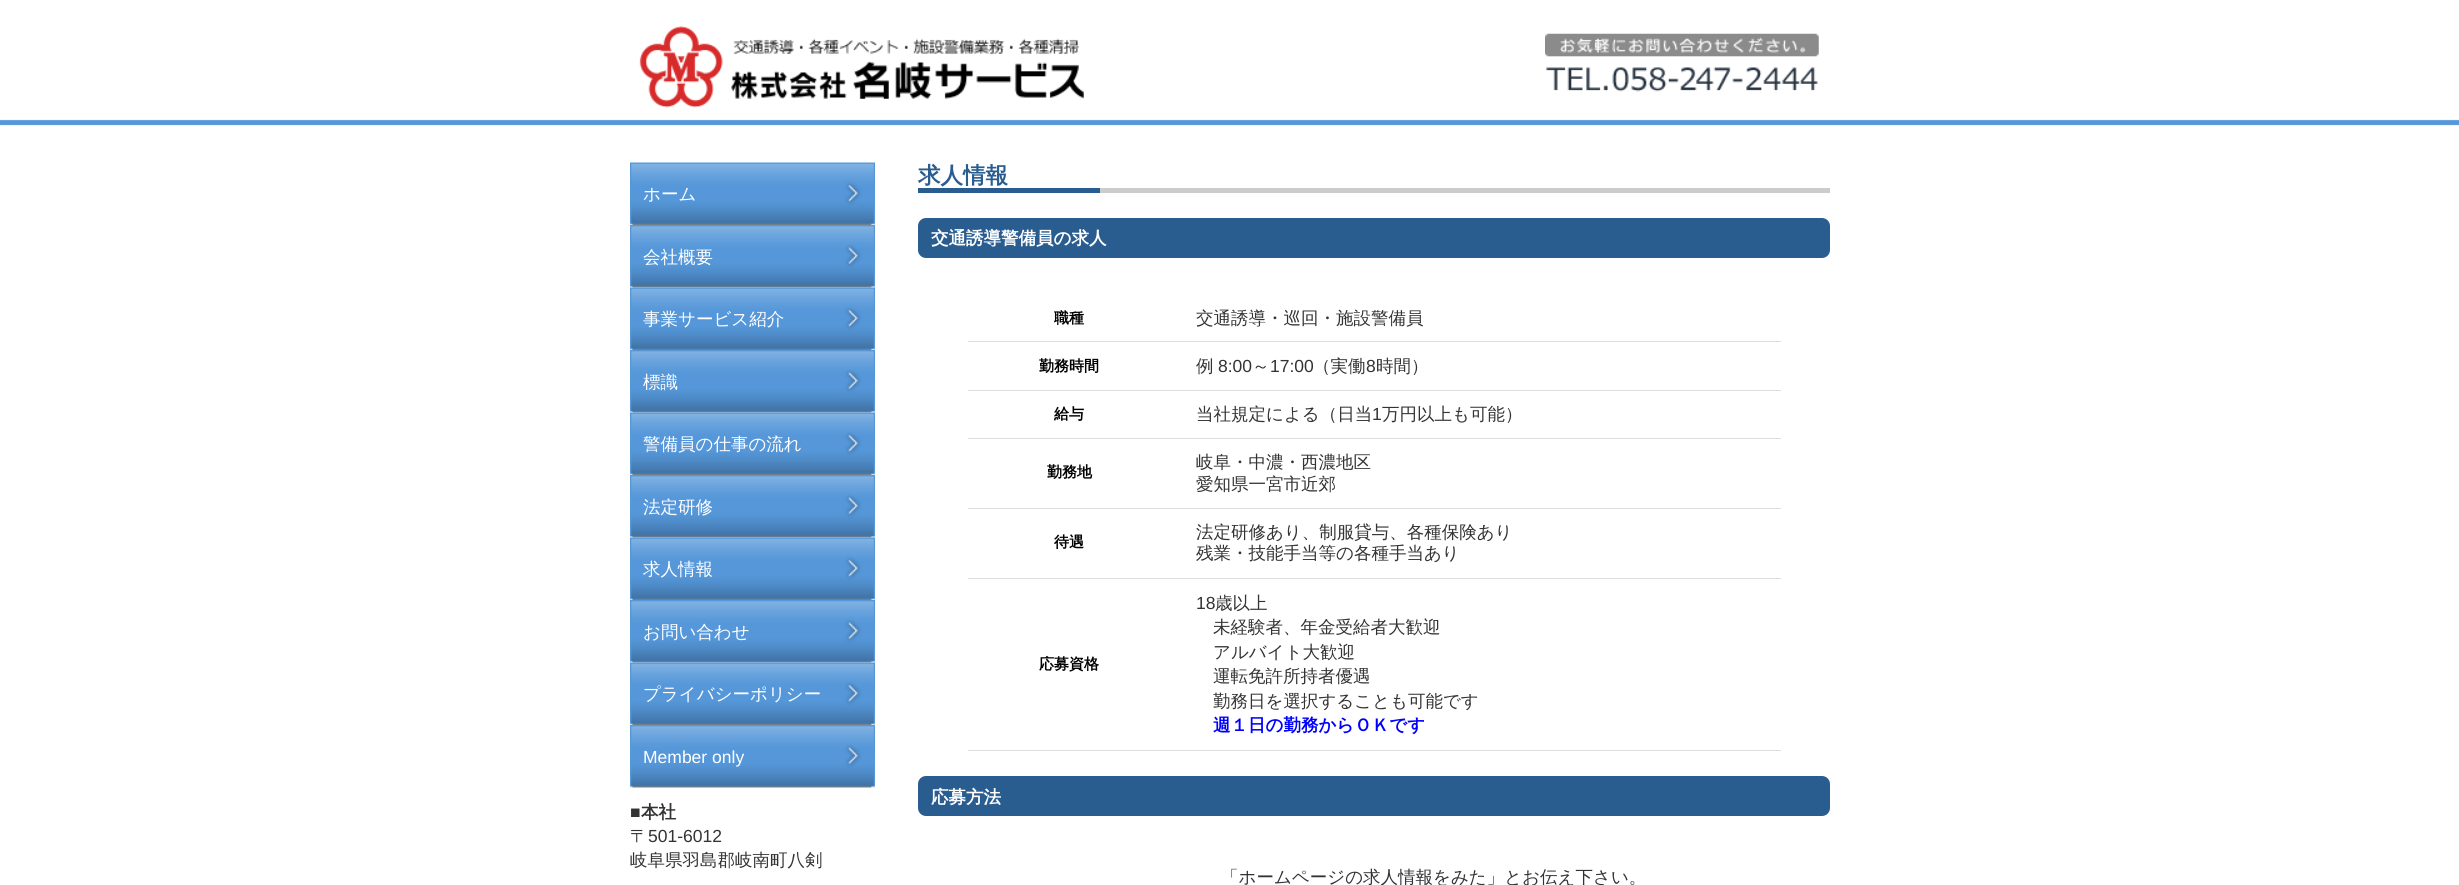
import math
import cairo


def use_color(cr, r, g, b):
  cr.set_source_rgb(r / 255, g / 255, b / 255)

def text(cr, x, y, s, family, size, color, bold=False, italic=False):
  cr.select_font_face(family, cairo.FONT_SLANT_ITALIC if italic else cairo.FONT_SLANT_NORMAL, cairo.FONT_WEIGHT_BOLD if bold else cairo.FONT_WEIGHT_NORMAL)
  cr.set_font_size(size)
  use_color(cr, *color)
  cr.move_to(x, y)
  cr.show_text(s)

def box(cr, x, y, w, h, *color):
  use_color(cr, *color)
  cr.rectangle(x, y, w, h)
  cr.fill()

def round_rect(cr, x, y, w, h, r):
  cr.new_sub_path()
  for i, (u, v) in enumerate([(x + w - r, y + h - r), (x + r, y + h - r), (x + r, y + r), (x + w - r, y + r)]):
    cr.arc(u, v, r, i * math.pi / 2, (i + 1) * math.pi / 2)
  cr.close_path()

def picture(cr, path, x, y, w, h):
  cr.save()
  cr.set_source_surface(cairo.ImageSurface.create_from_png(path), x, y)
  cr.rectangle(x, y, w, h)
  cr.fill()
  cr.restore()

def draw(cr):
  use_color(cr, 255, 255, 255)
  cr.paint()
  picture(cr, "img_01.png", 0, 119, 2459, 7)
  picture(cr, "img_02.png", 639, 26, 445, 82)
  picture(cr, "img_03.png", 1545, 33, 274, 59)
  picture(cr, "img_04.png", 630, 162, 245, 63)
  picture(cr, "img_05.png", 630, 225, 245, 63)
  picture(cr, "img_06.png", 630, 287, 245, 63)
  picture(cr, "img_05.png", 630, 350, 245, 63)
  picture(cr, "img_07.png", 630, 412, 245, 63)
  picture(cr, "img_05.png", 630, 475, 245, 63)
  picture(cr, "img_07.png", 630, 537, 245, 63)
  picture(cr, "img_05.png", 630, 600, 245, 63)
  picture(cr, "img_07.png", 630, 662, 245, 63)
  picture(cr, "img_05.png", 630, 725, 245, 63)
  box(cr, 1100, 188, 730, 5, 204, 204, 204)
  box(cr, 918, 188, 182, 5, 41, 93, 144)
  round_rect(cr, 918, 218, 912, 40, 8)
  cr.fill()
  box(cr, 968, 341, 813, 1, 221, 221, 221)
  box(cr, 968, 390, 813, 1, 221, 221, 221)
  box(cr, 968, 438, 813, 1, 221, 221, 221)
  box(cr, 968, 508, 813, 1, 221, 221, 221)
  box(cr, 968, 578, 813, 1, 221, 221, 221)
  box(cr, 968, 750, 813, 1, 221, 221, 221)
  use_color(cr, 41, 93, 144)
  round_rect(cr, 918, 776, 912, 40, 8)
  cr.fill()
  text(cr, 643, 200, "ホーム", "WenQuanYi Zen Hei Medium", 17.5, (255, 255, 255))
  text(cr, 643, 263, "会社概要", "WenQuanYi Zen Hei Medium", 17.5, (255, 255, 255))
  text(cr, 643, 325, "事業サービス紹介", "WenQuanYi Zen Hei Medium", 17.5, (255, 255, 255))
  text(cr, 643, 388, "標識", "WenQuanYi Zen Hei Medium", 17.5, (255, 255, 255))
  text(cr, 643, 450, "警備員の仕事の流れ", "WenQuanYi Zen Hei Medium", 17.5, (255, 255, 255))
  text(cr, 643, 513, "法定研修", "WenQuanYi Zen Hei Medium", 17.5, (255, 255, 255))
  text(cr, 643, 575, "求人情報", "WenQuanYi Zen Hei Medium", 17.5, (255, 255, 255))
  text(cr, 643, 638, "お問い合わせ", "WenQuanYi Zen Hei Medium", 17.5, (255, 255, 255))
  text(cr, 643, 700, "プライバシーポリシー", "WenQuanYi Zen Hei Medium", 17.5, (255, 255, 255))
  text(cr, 643, 763, "Member only", "Liberation Sans", 17.5, (255, 255, 255))
  text(cr, 630, 818, "■", "Liberation Sans", 17.5, (51, 51, 51), bold=True)
  text(cr, 641, 818, "本社", "WenQuanYi Zen Hei", 17.5, (51, 51, 51), bold=True)
  text(cr, 630, 842, "〒", "WenQuanYi Zen Hei Medium", 17.5, (51, 51, 51))
  text(cr, 648, 842, "501-6012", "Liberation Sans", 17.5, (51, 51, 51))
  text(cr, 630, 866, "岐阜県羽島郡岐南町八剣", "WenQuanYi Zen Hei Medium", 17.5, (51, 51, 51))
  text(cr, 918, 183, "求人情報", "WenQuanYi Zen Hei", 22.5, (41, 93, 144), bold=True)
  text(cr, 931, 244, "交通誘導警備員の求人", "WenQuanYi Zen Hei", 17.5, (255, 255, 255), bold=True)
  text(cr, 1054, 323, "職種", "WenQuanYi Zen Hei", 15, (0, 0, 0), bold=True)
  text(cr, 1196, 324, "交通誘導・巡回・施設警備員", "WenQuanYi Zen Hei Medium", 17.5, (51, 51, 51))
  text(cr, 1039, 371, "勤務時間", "WenQuanYi Zen Hei", 15, (0, 0, 0), bold=True)
  text(cr, 1196, 372, "例", "WenQuanYi Zen Hei Medium", 17.5, (51, 51, 51))
  text(cr, 1218, 372, "8:00", "Liberation Sans", 17.5, (51, 51, 51))
  text(cr, 1252, 372, "～", "WenQuanYi Zen Hei Medium", 17.5, (51, 51, 51))
  text(cr, 1270, 372, "17:00", "Liberation Sans", 17.5, (51, 51, 51))
  text(cr, 1313, 372, "（実働", "WenQuanYi Zen Hei Medium", 17.5, (51, 51, 51))
  text(cr, 1366, 372, "8", "Liberation Sans", 17.5, (51, 51, 51))
  text(cr, 1376, 372, "時間）", "WenQuanYi Zen Hei Medium", 17.5, (51, 51, 51))
  text(cr, 1054, 419, "給与", "WenQuanYi Zen Hei", 15, (0, 0, 0), bold=True)
  text(cr, 1196, 420, "当社規定による（日当", "WenQuanYi Zen Hei Medium", 17.5, (51, 51, 51))
  text(cr, 1372, 420, "1", "Liberation Sans", 17.5, (51, 51, 51))
  text(cr, 1382, 420, "万円以上も可能）", "WenQuanYi Zen Hei Medium", 17.5, (51, 51, 51))
  text(cr, 1047, 477, "勤務地", "WenQuanYi Zen Hei", 15, (0, 0, 0), bold=True)
  text(cr, 1196, 468, "岐阜・中濃・西濃地区", "WenQuanYi Zen Hei Medium", 17.5, (51, 51, 51))
  text(cr, 1196, 490, "愛知県一宮市近郊", "WenQuanYi Zen Hei Medium", 17.5, (51, 51, 51))
  text(cr, 1054, 547, "待遇", "WenQuanYi Zen Hei", 15, (0, 0, 0), bold=True)
  text(cr, 1196, 538, "法定研修あり、制服貸与、各種保険あり", "WenQuanYi Zen Hei Medium", 17.5, (51, 51, 51))
  text(cr, 1196, 559, "残業・技能手当等の各種手当あり", "WenQuanYi Zen Hei Medium", 17.5, (51, 51, 51))
  text(cr, 1039, 669, "応募資格", "WenQuanYi Zen Hei", 15, (0, 0, 0), bold=True)
  text(cr, 1196, 609, "18", "Liberation Sans", 17.5, (51, 51, 51))
  text(cr, 1215, 609, "歳以上", "WenQuanYi Zen Hei Medium", 17.5, (51, 51, 51))
  text(cr, 1213, 633, "未経験者、年金受給者大歓迎", "WenQuanYi Zen Hei Medium", 17.5, (51, 51, 51))
  text(cr, 1213, 658, "アルバイト大歓迎", "WenQuanYi Zen Hei Medium", 17.5, (51, 51, 51))
  text(cr, 1213, 682, "運転免許所持者優遇", "WenQuanYi Zen Hei Medium", 17.5, (51, 51, 51))
  text(cr, 1213, 707, "勤務日を選択することも可能です", "WenQuanYi Zen Hei Medium", 17.5, (51, 51, 51))
  text(cr, 1213, 731, "週１日の勤務からＯＫです", "WenQuanYi Zen Hei", 17.5, (0, 0, 255), bold=True)
  text(cr, 931, 803, "応募方法", "WenQuanYi Zen Hei", 17.5, (255, 255, 255), bold=True)
  text(cr, 1221, 883, "「ホームページの求人情報をみた」とお伝え下さい。", "WenQuanYi Zen Hei Medium", 17.5, (51, 51, 51))


surface = cairo.ImageSurface(cairo.FORMAT_RGB24, 2459, 885)
cr = cairo.Context(surface)
options = cairo.FontOptions()
options.set_hint_metrics(cairo.HINT_METRICS_OFF)
options.set_hint_style(cairo.HINT_STYLE_NONE)
cr.set_font_options(options)
cr.set_miter_limit(4)
draw(cr)
surface.write_to_png("out.png")
